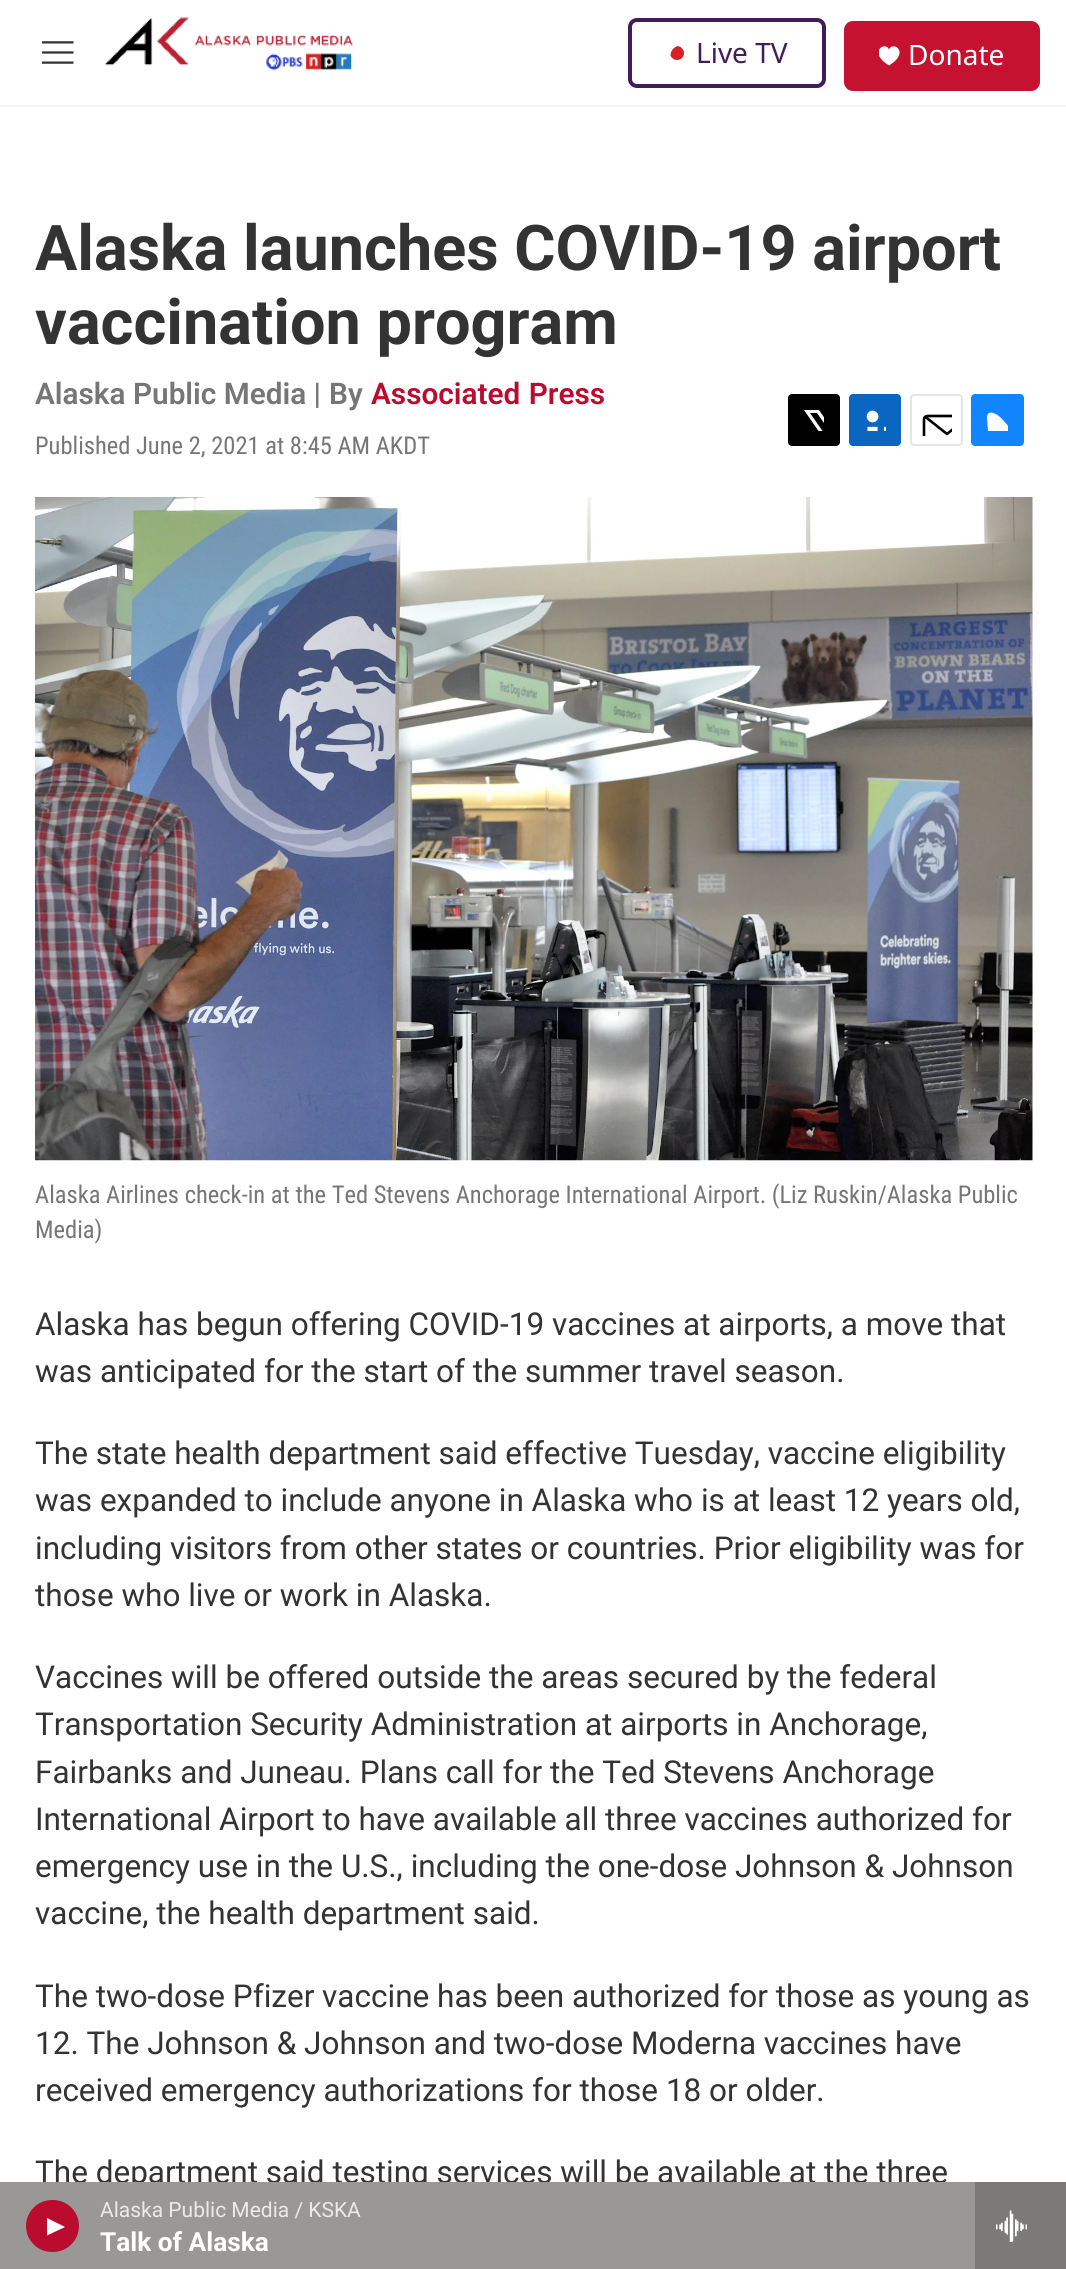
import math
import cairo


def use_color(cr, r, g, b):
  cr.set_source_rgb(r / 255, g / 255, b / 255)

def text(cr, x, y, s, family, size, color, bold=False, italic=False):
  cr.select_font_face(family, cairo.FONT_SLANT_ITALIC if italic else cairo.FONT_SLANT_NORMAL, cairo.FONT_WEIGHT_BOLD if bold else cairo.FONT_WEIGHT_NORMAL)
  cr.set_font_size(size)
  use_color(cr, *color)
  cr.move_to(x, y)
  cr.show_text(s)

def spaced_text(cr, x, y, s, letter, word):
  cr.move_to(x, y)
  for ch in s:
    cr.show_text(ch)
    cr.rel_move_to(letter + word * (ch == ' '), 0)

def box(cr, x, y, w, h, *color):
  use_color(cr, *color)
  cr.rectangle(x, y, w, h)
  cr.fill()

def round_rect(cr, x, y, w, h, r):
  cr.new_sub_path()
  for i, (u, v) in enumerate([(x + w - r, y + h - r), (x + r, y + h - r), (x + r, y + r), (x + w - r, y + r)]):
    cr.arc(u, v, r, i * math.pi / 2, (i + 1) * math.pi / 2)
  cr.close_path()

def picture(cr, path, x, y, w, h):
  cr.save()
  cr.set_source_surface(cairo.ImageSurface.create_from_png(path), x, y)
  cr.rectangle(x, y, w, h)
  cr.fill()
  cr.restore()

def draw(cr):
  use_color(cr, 255, 255, 255)
  cr.paint()
  box(cr, 0, 105, 1066, 2, 245, 245, 245)
  picture(cr, "img_01.png", 42, 41, 32, 23)
  picture(cr, "img_02.png", 105, 17, 249, 54)
  round_rect(cr, 630, 20, 194, 66, 7)
  use_color(cr, 65, 28, 88)
  cr.set_line_width(4)
  cr.stroke()
  use_color(cr, 214, 32, 33)
  cr.new_path()
  cr.move_to(677.5, 46)
  cr.curve_to(681, 46.5, 684, 49.5, 684, 53)
  cr.curve_to(684, 57, 681, 60, 677, 60)
  cr.curve_to(674, 60, 671.5, 58, 670.5, 55.5)
  cr.curve_to(670.5, 51, 673.5, 47.5, 677.5, 46)
  cr.close_path()
  cr.fill()
  use_color(cr, 196, 18, 48)
  round_rect(cr, 844, 21, 196, 70, 9)
  cr.fill()
  cr.save()
  cr.rectangle(879, 46, 21, 21)
  cr.clip()
  use_color(cr, 255, 255, 255)
  cr.new_path()
  cr.move_to(889, 49.5)
  cr.curve_to(885.5, 40.5, 867, 52, 889, 65.5)
  cr.curve_to(911, 52, 892.5, 40.5, 889, 49.5)
  cr.close_path()
  cr.fill()
  cr.restore()
  box(cr, 975, 2182, 91, 87, 123, 122, 120)
  picture(cr, "img_03.png", 996, 2210, 31, 32)
  use_color(cr, 0, 0, 0)
  round_rect(cr, 788, 394, 52, 52, 4)
  cr.fill()
  cr.save()
  cr.rectangle(803, 410, 21, 21)
  cr.clip()
  use_color(cr, 255, 255, 255)
  cr.new_path()
  cr.move_to(834, 432)
  cr.line_to(840, 440.5)
  cr.curve_to(840, 442, 840, 443.5, 839, 444.5)
  cr.line_to(817, 413)
  cr.line_to(810, 413)
  cr.line_to(833, 446)
  cr.line_to(829, 446)
  cr.line_to(826, 442)
  cr.line_to(822.5, 446)
  cr.line_to(818, 446)
  cr.line_to(824, 439)
  cr.line_to(804, 410)
  cr.line_to(819, 410)
  cr.line_to(832, 429)
  cr.line_to(840, 420)
  cr.line_to(840, 425)
  cr.close_path()
  cr.fill()
  cr.restore()
  use_color(cr, 10, 102, 193)
  round_rect(cr, 849, 394, 52, 52, 4)
  cr.fill()
  picture(cr, "img_04.png", 866, 410, 20, 21)
  round_rect(cr, 911, 395, 51, 50, 3)
  use_color(cr, 230, 230, 230)
  cr.set_line_width(2)
  cr.stroke()
  cr.save()
  cr.rectangle(921, 404, 31, 32)
  cr.clip()
  cr.new_path()
  cr.move_to(969.5, 442.5)
  cr.curve_to(969.5, 444.5, 968, 446, 966, 446)
  cr.line_to(927.5, 446)
  cr.curve_to(925.5, 446, 924, 444.5, 924, 442.5)
  cr.line_to(924, 419)
  cr.curve_to(924, 417.5, 925.5, 416, 927.5, 416)
  cr.line_to(966, 416)
  cr.curve_to(968, 416, 969.5, 417.5, 969.5, 419)
  cr.close_path()
  cr.move_to(968, 417)
  cr.line_to(947, 434)
  cr.line_to(925.5, 417)
  use_color(cr, 0, 0, 0)
  cr.set_line_width(2.6)
  cr.set_line_cap(cairo.LINE_CAP_ROUND)
  cr.set_line_join(cairo.LINE_JOIN_ROUND)
  cr.stroke()
  cr.restore()
  use_color(cr, 17, 133, 254)
  round_rect(cr, 971, 394, 53, 52, 4)
  cr.fill()
  picture(cr, "img_05.png", 987, 412, 21, 19)
  picture(cr, "img_06.png", 35, 497, 998, 664)
  text(cr, 696, 63, "Live TV", "Noto Sans", 28, (65, 28, 88))
  text(cr, 908, 65, "Donate", "Noto Sans", 28, (255, 255, 255))
  text(cr, 35, 270, "Alaska launches COVID-19 airport", "Roboto", 63, (51, 51, 51), bold=True)
  text(cr, 35, 344, "vaccination program", "Roboto", 63, (51, 51, 51), bold=True)
  text(cr, 35, 404, "Alaska Public Media |", "Roboto SemiBold", 29.75, (118, 118, 118))
  text(cr, 329, 404, "By", "Roboto SemiBold", 29.75, (118, 118, 118))
  use_color(cr, 186, 12, 47)
  spaced_text(cr, 371, 404, "Associated Press", 0, 1)
  text(cr, 35, 454, "Published June 2, 2021 at 8:45 AM AKDT", "Roboto Condensed", 24.5, (118, 118, 118))
  text(cr, 35, 1203, "Alaska Airlines check-in at the Ted Stevens Anchorage International Airport. (Liz Ruskin/Alaska Public", "Roboto Condensed", 24.5, (118, 118, 118))
  text(cr, 35, 1238, "Media)", "Roboto Condensed", 24.5, (118, 118, 118))
  text(cr, 35, 1335, "Alaska has begun offering COVID-19 vaccines at airports, a move that", "Roboto", 31.5, (51, 51, 51))
  text(cr, 35, 1382, "was anticipated for the start of the summer travel season.", "Roboto", 31.5, (51, 51, 51))
  text(cr, 35, 1464, "The state health department said effective Tuesday, vaccine eligibility", "Roboto", 31.5, (51, 51, 51))
  text(cr, 35, 1511, "was expanded to include anyone in Alaska who is at least 12 years old,", "Roboto", 31.5, (51, 51, 51))
  text(cr, 35, 1559, "including visitors from other states or countries. Prior eligibility was for", "Roboto", 31.5, (51, 51, 51))
  text(cr, 35, 1606, "those who live or work in Alaska.", "Roboto", 31.5, (51, 51, 51))
  text(cr, 35, 1688, "Vaccines will be offered outside the areas secured by the federal", "Roboto", 31.5, (51, 51, 51))
  text(cr, 35, 1735, "Transportation Security Administration at airports in Anchorage,", "Roboto", 31.5, (51, 51, 51))
  text(cr, 35, 1783, "Fairbanks and Juneau. Plans call for the Ted Stevens Anchorage", "Roboto", 31.5, (51, 51, 51))
  text(cr, 35, 1830, "International Airport to have available all three vaccines authorized for", "Roboto", 31.5, (51, 51, 51))
  text(cr, 35, 1877, "emergency use in the U.S., including the one-dose Johnson & Johnson", "Roboto", 31.5, (51, 51, 51))
  text(cr, 35, 1924, "vaccine, the health department said.", "Roboto", 31.5, (51, 51, 51))
  text(cr, 35, 2007, "The two-dose Pfizer vaccine has been authorized for those as young as", "Roboto", 31.5, (51, 51, 51))
  text(cr, 35, 2054, "12. The Johnson & Johnson and two-dose Moderna vaccines have", "Roboto", 31.5, (51, 51, 51))
  text(cr, 35, 2101, "received emergency authorizations for those 18 or older.", "Roboto", 31.5, (51, 51, 51))
  text(cr, 35, 2183, "The department said testing services will be available at the three", "Roboto", 31.5, (51, 51, 51))
  box(cr, 0, 2182, 975, 87, 154, 152, 150)
  text(cr, 100, 2217, "Alaska Public Media / KSKA", "Roboto", 21, (235, 234, 234))
  text(cr, 100, 2251, "Talk of Alaska", "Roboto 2", 26.25, (255, 255, 255), bold=True)
  use_color(cr, 186, 12, 47)
  round_rect(cr, 26, 2200, 53, 52, 26)
  cr.fill()
  use_color(cr, 255, 255, 255)
  cr.new_path()
  cr.move_to(47, 2218)
  cr.line_to(65, 2227)
  cr.line_to(47, 2235.5)
  cr.close_path()
  cr.fill()


surface = cairo.ImageSurface(cairo.FORMAT_RGB24, 1066, 2269)
cr = cairo.Context(surface)
options = cairo.FontOptions()
options.set_hint_metrics(cairo.HINT_METRICS_OFF)
options.set_hint_style(cairo.HINT_STYLE_NONE)
cr.set_font_options(options)
cr.set_miter_limit(4)
draw(cr)
surface.write_to_png("out.png")
